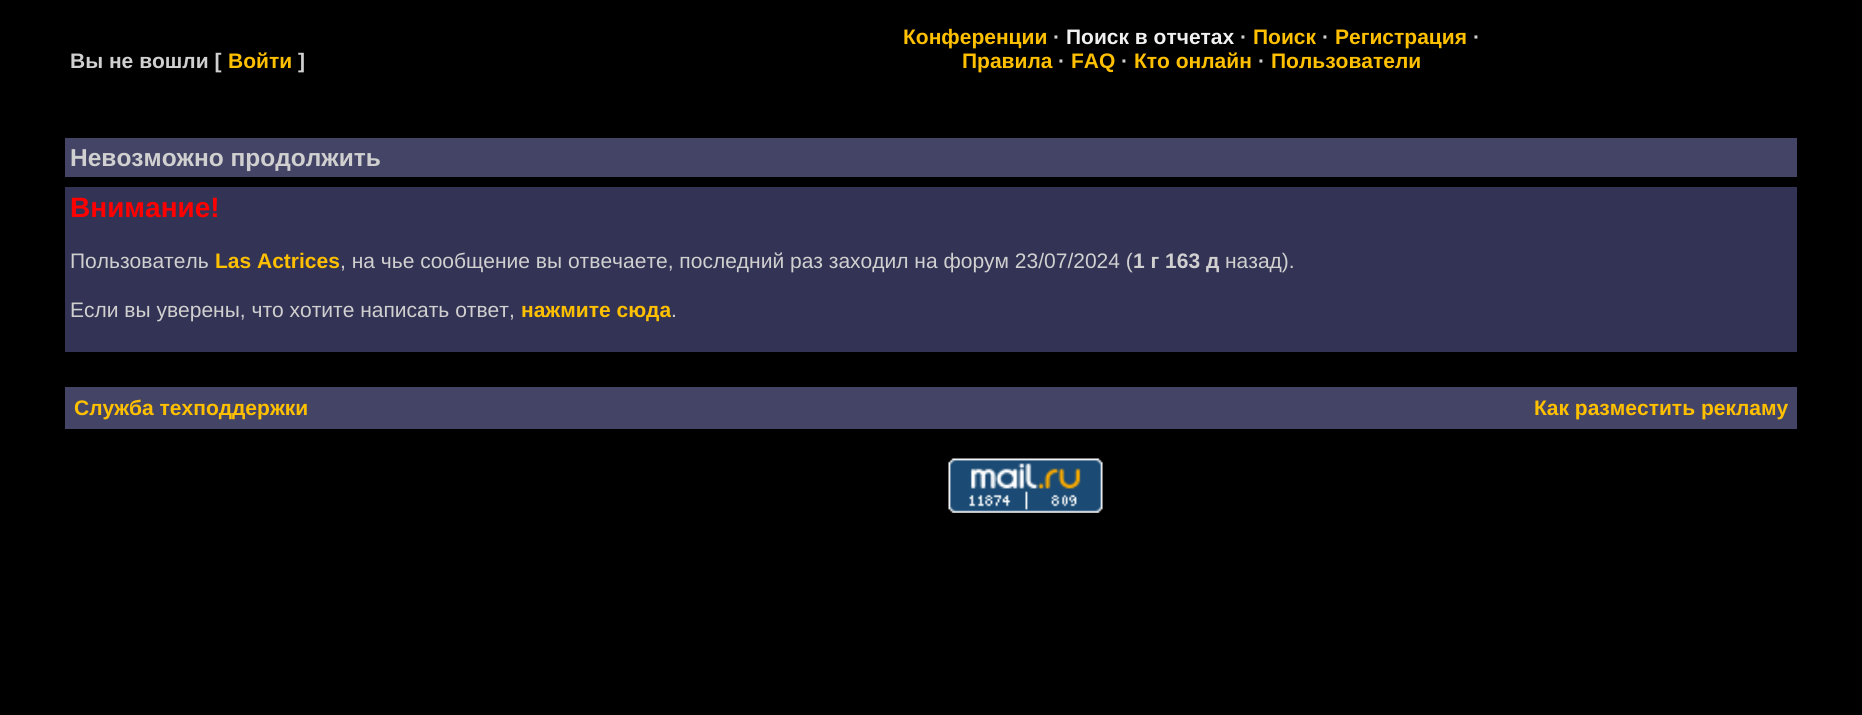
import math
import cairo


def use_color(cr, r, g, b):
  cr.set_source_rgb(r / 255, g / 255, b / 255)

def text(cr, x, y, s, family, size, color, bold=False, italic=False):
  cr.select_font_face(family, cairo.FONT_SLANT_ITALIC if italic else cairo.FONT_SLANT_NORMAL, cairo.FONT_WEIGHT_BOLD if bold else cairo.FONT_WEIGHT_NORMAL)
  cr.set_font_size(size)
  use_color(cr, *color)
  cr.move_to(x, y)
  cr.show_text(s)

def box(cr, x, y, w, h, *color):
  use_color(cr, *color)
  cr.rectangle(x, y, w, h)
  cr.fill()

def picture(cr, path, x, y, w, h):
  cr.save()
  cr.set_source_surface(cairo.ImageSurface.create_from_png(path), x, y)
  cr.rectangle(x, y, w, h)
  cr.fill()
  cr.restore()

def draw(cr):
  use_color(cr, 0, 0, 0)
  cr.paint()
  box(cr, 65, 138, 1732, 39, 68, 68, 102)
  box(cr, 65, 187, 1732, 165, 51, 51, 85)
  box(cr, 65, 387, 1732, 42, 68, 68, 102)
  picture(cr, "img_01.png", 948, 458, 155, 55)
  text(cr, 70, 68, "Вы не вошли [", "Liberation Sans", 21, (208, 208, 208), bold=True)
  text(cr, 228, 68, "Войти", "Liberation Sans", 21, (255, 192, 0), bold=True)
  text(cr, 298, 68, "]", "Liberation Sans", 21, (208, 208, 208), bold=True)
  text(cr, 903, 44, "Конференции", "Liberation Sans", 21, (255, 192, 0), bold=True)
  text(cr, 1053, 44, "·", "Liberation Sans", 21, (208, 208, 208), bold=True)
  text(cr, 1066, 44, "Поиск в отчетах", "Liberation Sans", 21, (240, 240, 240), bold=True)
  text(cr, 1240, 44, "·", "Liberation Sans", 21, (208, 208, 208), bold=True)
  text(cr, 1253, 44, "Поиск", "Liberation Sans", 21, (255, 192, 0), bold=True)
  text(cr, 1322, 44, "·", "Liberation Sans", 21, (208, 208, 208), bold=True)
  text(cr, 1335, 44, "Регистрация", "Liberation Sans", 21, (255, 192, 0), bold=True)
  text(cr, 1473, 44, "·", "Liberation Sans", 21, (208, 208, 208), bold=True)
  text(cr, 962, 68, "Правила", "Liberation Sans", 21, (255, 192, 0), bold=True)
  text(cr, 1058, 68, "·", "Liberation Sans", 21, (208, 208, 208), bold=True)
  text(cr, 1071, 68, "FAQ", "Liberation Sans", 21, (255, 192, 0), bold=True)
  text(cr, 1121, 68, "·", "Liberation Sans", 21, (208, 208, 208), bold=True)
  text(cr, 1134, 68, "Кто онлайн", "Liberation Sans", 21, (255, 192, 0), bold=True)
  text(cr, 1258, 68, "·", "Liberation Sans", 21, (208, 208, 208), bold=True)
  text(cr, 1271, 68, "Пользователи", "Liberation Sans", 21, (255, 192, 0), bold=True)
  text(cr, 70, 166, "Невозможно продолжить", "Liberation Sans", 24.5, (208, 208, 208), bold=True)
  text(cr, 70, 217, "Внимание!", "Liberation Sans", 28, (255, 0, 0), bold=True)
  text(cr, 70, 268, "Пользователь", "Liberation Sans", 21, (208, 208, 208))
  text(cr, 215, 268, "Las Actrices", "Liberation Sans", 21, (255, 192, 0), bold=True)
  text(cr, 340, 268, ", на чье сообщение вы отвечаете, последний раз заходил на форум 23/07/2024 (", "Liberation Sans", 21, (208, 208, 208))
  text(cr, 1133, 268, "1 г 163 д", "Liberation Sans", 21, (208, 208, 208), bold=True)
  text(cr, 1225, 268, "назад).", "Liberation Sans", 21, (208, 208, 208))
  text(cr, 70, 317, "Если вы уверены, что хотите написать ответ,", "Liberation Sans", 21, (208, 208, 208))
  text(cr, 521, 317, "нажмите сюда", "Liberation Sans", 21, (255, 192, 0), bold=True)
  text(cr, 671, 317, ".", "Liberation Sans", 21, (208, 208, 208))
  text(cr, 74, 415, "Служба техподдержки", "Liberation Sans", 21, (255, 192, 0), bold=True)
  text(cr, 1534, 415, "Как разместить рекламу", "Liberation Sans", 21, (255, 192, 0), bold=True)


surface = cairo.ImageSurface(cairo.FORMAT_RGB24, 1862, 715)
cr = cairo.Context(surface)
options = cairo.FontOptions()
options.set_hint_metrics(cairo.HINT_METRICS_OFF)
options.set_hint_style(cairo.HINT_STYLE_NONE)
cr.set_font_options(options)
cr.set_miter_limit(4)
draw(cr)
surface.write_to_png("out.png")
